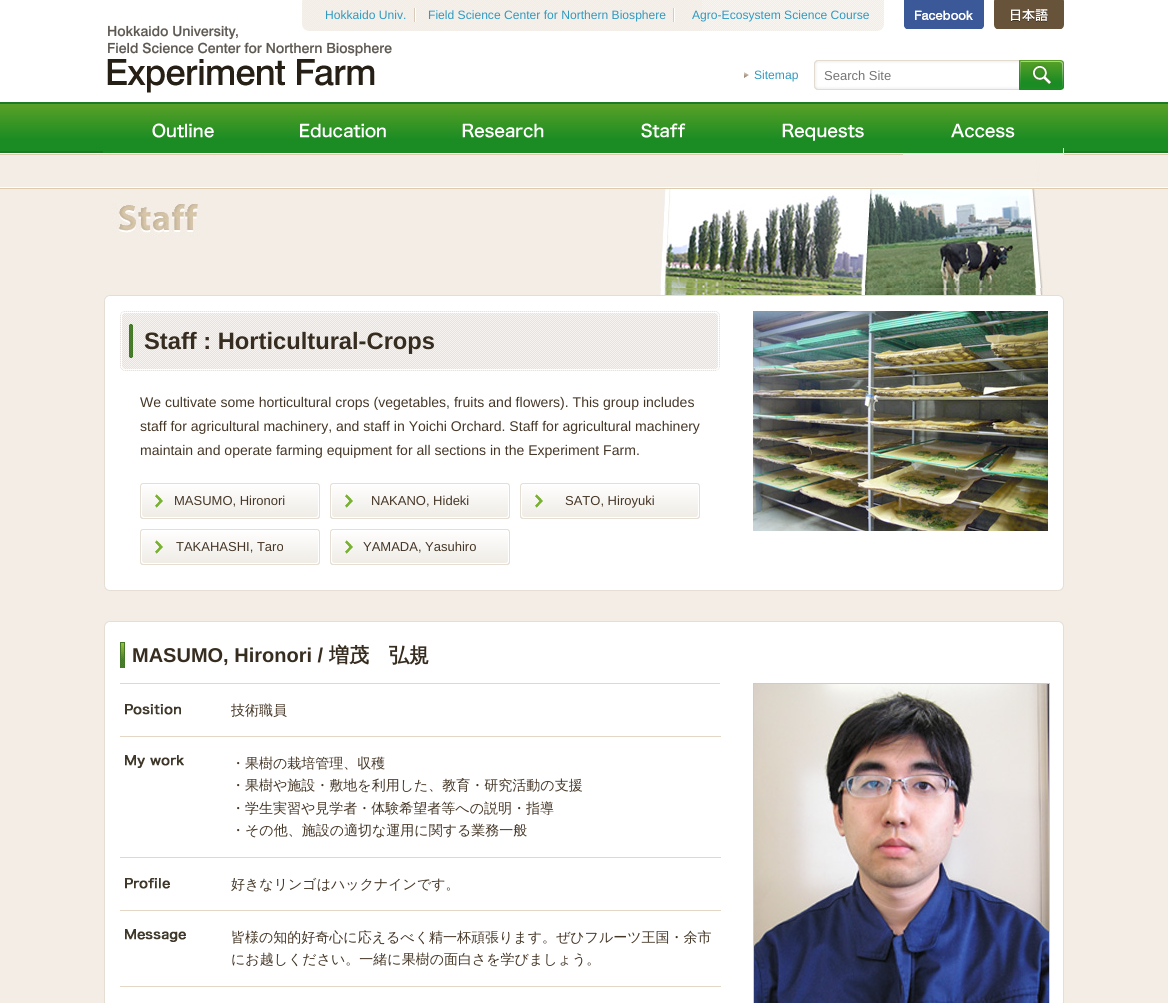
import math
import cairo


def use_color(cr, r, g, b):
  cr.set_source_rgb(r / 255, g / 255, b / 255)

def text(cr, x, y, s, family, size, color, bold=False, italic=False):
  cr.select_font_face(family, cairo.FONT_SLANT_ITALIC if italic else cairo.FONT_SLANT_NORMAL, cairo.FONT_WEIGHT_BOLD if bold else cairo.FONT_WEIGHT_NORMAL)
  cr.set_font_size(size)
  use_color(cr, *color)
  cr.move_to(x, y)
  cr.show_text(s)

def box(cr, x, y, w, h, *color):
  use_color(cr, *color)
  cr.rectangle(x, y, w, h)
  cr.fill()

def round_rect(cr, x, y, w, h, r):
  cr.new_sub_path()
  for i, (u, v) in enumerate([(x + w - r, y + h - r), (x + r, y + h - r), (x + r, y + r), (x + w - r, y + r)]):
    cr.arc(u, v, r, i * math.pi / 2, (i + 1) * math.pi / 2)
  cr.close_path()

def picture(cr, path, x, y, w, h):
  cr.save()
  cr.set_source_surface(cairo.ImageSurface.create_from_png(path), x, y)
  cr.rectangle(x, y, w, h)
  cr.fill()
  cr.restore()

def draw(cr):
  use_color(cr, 243, 237, 229)
  cr.paint()
  box(cr, 0, 0, 1168, 102, 255, 255, 255)
  picture(cr, "img_05.png", 107, 25, 285, 68)
  picture(cr, "img_01.png", 302, 0, 582, 31)
  picture(cr, "img_02.png", 414, 8, 2, 14)
  picture(cr, "img_02.png", 673, 8, 2, 14)
  picture(cr, "img_03.png", 904, 0, 80, 29)
  picture(cr, "img_04.png", 994, 0, 70, 29)
  picture(cr, "img_06.png", 744, 72, 5, 6)
  picture(cr, "img_07.png", 814, 60, 205, 30)
  picture(cr, "img_08.png", 1019, 60, 45, 30)
  picture(cr, "img_09.png", 0, 102, 1168, 53)
  picture(cr, "img_18.png", 104, 148, 960, 140)
  picture(cr, "img_10.png", 103, 123, 160, 32)
  picture(cr, "img_11.png", 263, 123, 160, 32)
  picture(cr, "img_12.png", 423, 123, 160, 32)
  picture(cr, "img_13.png", 583, 123, 160, 32)
  picture(cr, "img_14.png", 743, 123, 160, 32)
  picture(cr, "img_15.png", 903, 123, 160, 32)
  box(cr, 664, 155, 371, 32, 243, 237, 229)
  picture(cr, "img_16.png", 0, 187, 1168, 2)
  picture(cr, "img_17.png", 104, 288, 960, 7)
  use_color(cr, 255, 255, 255)
  round_rect(cr, 104.5, 295.5, 959, 295, 5.5)
  cr.fill_preserve()
  use_color(cr, 229, 222, 212)
  cr.set_line_width(1)
  cr.stroke()
  picture(cr, "img_19.png", 120, 311, 600, 60)
  picture(cr, "img_20.png", 140, 483, 180, 36)
  picture(cr, "img_20.png", 330, 483, 180, 36)
  picture(cr, "img_20.png", 520, 483, 180, 36)
  picture(cr, "img_20.png", 140, 529, 180, 36)
  picture(cr, "img_20.png", 330, 529, 180, 36)
  picture(cr, "img_21.png", 753, 311, 295, 220)
  use_color(cr, 255, 255, 255)
  round_rect(cr, 104.5, 621.5, 959, 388, 5.5)
  cr.fill_preserve()
  use_color(cr, 229, 222, 212)
  cr.stroke()
  picture(cr, "img_22.png", 120, 642, 5, 26)
  box(cr, 120, 683, 600, 1, 228, 215, 197)
  picture(cr, "img_23.png", 125, 704, 56, 11)
  box(cr, 120, 736, 601, 1, 228, 215, 197)
  picture(cr, "img_24.png", 125, 755, 59, 13)
  box(cr, 120, 857, 601, 1, 228, 215, 197)
  picture(cr, "img_25.png", 125, 878, 45, 11)
  box(cr, 120, 910, 601, 1, 228, 215, 197)
  picture(cr, "img_26.png", 125, 929, 61, 13)
  box(cr, 120, 986, 601, 1, 228, 215, 197)
  cr.rectangle(753.5, 683.5, 296, 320)
  use_color(cr, 204, 204, 204)
  cr.stroke()
  picture(cr, "img_27.png", 754, 684, 295, 319)
  text(cr, 325, 19, "Hokkaido Univ.", "Liberation Sans", 12.1, (48, 153, 192))
  text(cr, 428, 19, "Field Science Center for Northern Biosphere", "Liberation Sans", 12.1, (48, 153, 192))
  text(cr, 692, 19, "Agro-Ecosystem Science Course", "Liberation Sans", 12.1, (48, 153, 192))
  text(cr, 754, 79, "Sitemap", "Liberation Sans", 12.1, (48, 153, 192))
  text(cr, 824, 80, "Search Site", "Liberation Sans", 13, (117, 117, 117))
  text(cr, 144, 349, "Staff : Horticultural-Crops", "Liberation Sans", 23.7, (54, 44, 31), bold=True)
  text(cr, 140, 407, "We cultivate some horticultural crops (vegetables, fruits and flowers). This group includes", "Liberation Sans", 14.05, (69, 55, 39))
  text(cr, 140, 431, "staff for agricultural machinery, and staff in Yoichi Orchard. Staff for agricultural machinery", "Liberation Sans", 14.05, (69, 55, 39))
  text(cr, 140, 455, "maintain and operate farming equipment for all sections in the Experiment Farm.", "Liberation Sans", 14.05, (69, 55, 39))
  text(cr, 174, 505, "MASUMO, Hironori", "Liberation Sans", 13, (69, 55, 39))
  text(cr, 371, 505, "NAKANO, Hideki", "Liberation Sans", 13, (69, 55, 39))
  text(cr, 565, 505, "SATO, Hiroyuki", "Liberation Sans", 13, (69, 55, 39))
  text(cr, 176, 551, "TAKAHASHI, Taro", "Liberation Sans", 13, (69, 55, 39))
  text(cr, 363, 551, "YAMADA, Yasuhiro", "Liberation Sans", 13, (69, 55, 39))
  text(cr, 132, 662, "MASUMO, Hironori /", "Liberation Sans", 20, (54, 44, 31), bold=True)
  text(cr, 329, 662, "増茂　弘規", "WenQuanYi Zen Hei", 20, (54, 44, 31), bold=True)
  text(cr, 231, 715, "技術職員", "WenQuanYi Zen Hei Medium", 14, (69, 55, 39))
  text(cr, 231, 768, "・果樹の栽培管理、収穫", "WenQuanYi Zen Hei Medium", 14, (69, 55, 39))
  text(cr, 231, 790, "・果樹や施設・敷地を利用した、教育・研究活動の支援", "WenQuanYi Zen Hei Medium", 14, (69, 55, 39))
  text(cr, 231, 813, "・学生実習や見学者・体験希望者等への説明・指導", "WenQuanYi Zen Hei Medium", 14, (69, 55, 39))
  text(cr, 231, 835, "・その他、施設の適切な運用に関する業務一般", "WenQuanYi Zen Hei Medium", 14, (69, 55, 39))
  text(cr, 231, 889, "好きなリンゴはハックナインです。", "WenQuanYi Zen Hei Medium", 14, (69, 55, 39))
  text(cr, 231, 942, "皆様の知的好奇心に応えるべく精一杯頑張ります。ぜひフルーツ王国・余市", "WenQuanYi Zen Hei Medium", 14, (69, 55, 39))
  text(cr, 231, 964, "にお越しください。一緒に果樹の面白さを学びましょう。", "WenQuanYi Zen Hei Medium", 14, (69, 55, 39))


surface = cairo.ImageSurface(cairo.FORMAT_RGB24, 1168, 1003)
cr = cairo.Context(surface)
options = cairo.FontOptions()
options.set_hint_metrics(cairo.HINT_METRICS_OFF)
options.set_hint_style(cairo.HINT_STYLE_NONE)
cr.set_font_options(options)
cr.set_miter_limit(4)
draw(cr)
surface.write_to_png("out.png")
